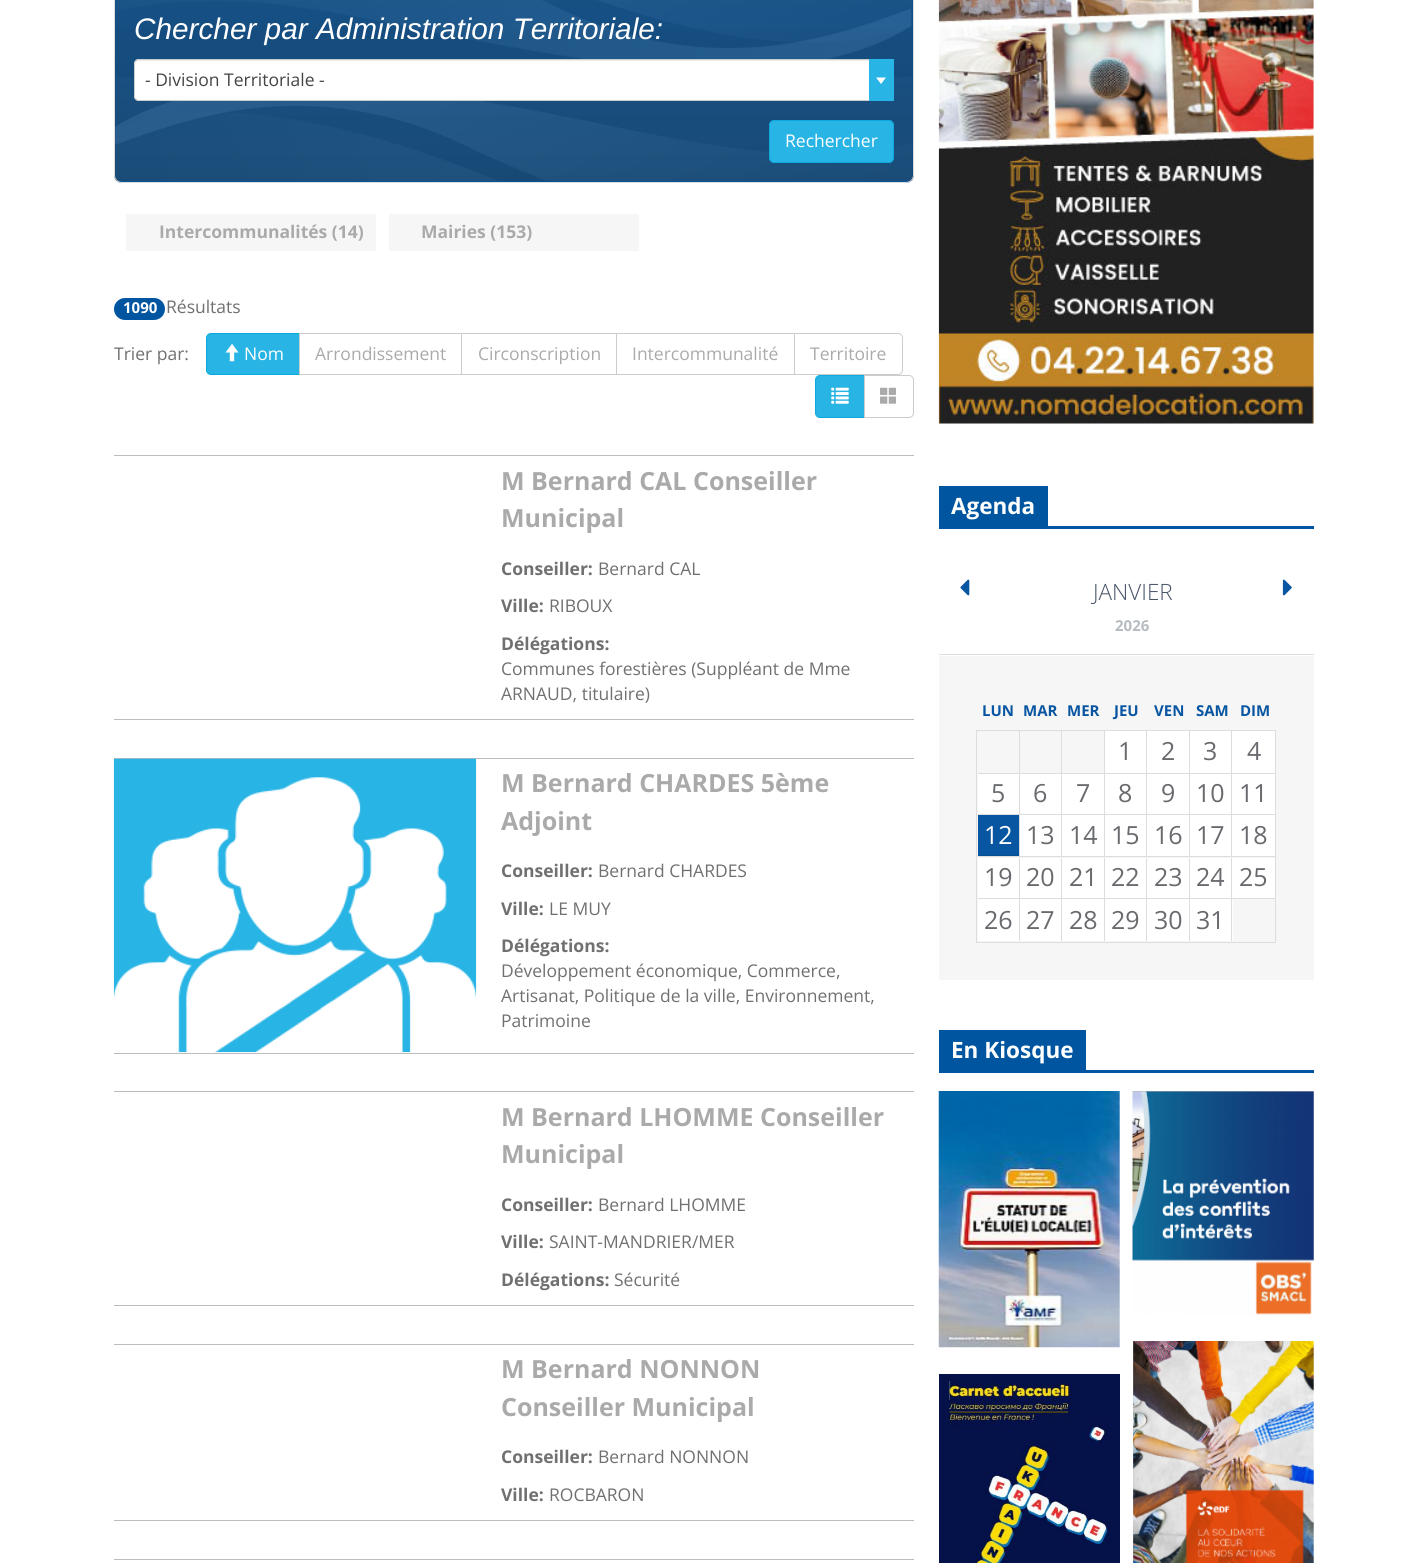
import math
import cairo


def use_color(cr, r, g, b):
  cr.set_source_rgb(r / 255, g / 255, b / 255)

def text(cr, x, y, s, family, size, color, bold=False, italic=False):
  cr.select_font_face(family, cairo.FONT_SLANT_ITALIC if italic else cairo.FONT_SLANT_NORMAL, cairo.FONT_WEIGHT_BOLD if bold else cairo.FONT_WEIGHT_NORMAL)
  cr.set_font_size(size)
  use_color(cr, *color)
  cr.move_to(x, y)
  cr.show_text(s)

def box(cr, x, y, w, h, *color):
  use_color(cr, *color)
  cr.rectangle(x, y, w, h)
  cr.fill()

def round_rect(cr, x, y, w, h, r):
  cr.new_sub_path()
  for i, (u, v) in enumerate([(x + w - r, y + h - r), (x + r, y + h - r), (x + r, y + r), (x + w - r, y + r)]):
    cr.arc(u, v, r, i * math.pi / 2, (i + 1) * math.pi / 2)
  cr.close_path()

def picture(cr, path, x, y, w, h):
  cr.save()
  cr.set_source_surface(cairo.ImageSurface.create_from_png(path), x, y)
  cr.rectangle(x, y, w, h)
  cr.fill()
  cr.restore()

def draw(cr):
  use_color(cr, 255, 255, 255)
  cr.paint()
  cr.save()
  round_rect(cr, 114, -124, 800, 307, 8)
  cr.clip()
  gradient = cairo.LinearGradient(514, -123, 514, 181)
  gradient.add_color_stop_rgba(0, 0, 0.333, 0.627, 1)
  gradient.add_color_stop_rgba(1, 0.016, 0.267, 0.49, 1)
  cr.set_source(gradient)
  cr.rectangle(114, 0, 800, 181)
  cr.fill()
  gradient = cairo.LinearGradient(514, 181, 514, 485)
  gradient.add_color_stop_rgba(0, 0, 0.333, 0.627, 1)
  gradient.add_color_stop_rgba(1, 0.016, 0.267, 0.49, 1)
  cr.set_source(gradient)
  cr.rectangle(114, 181, 800, 2)
  cr.fill()
  cr.restore()
  round_rect(cr, 114.5, -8.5, 799, 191, 7.5)
  use_color(cr, 221, 221, 221)
  cr.set_line_width(1)
  cr.stroke()
  picture(cr, "img_01.png", 115, 0, 798, 181)
  use_color(cr, 255, 255, 255)
  round_rect(cr, 134, 59, 760, 42, 5)
  cr.fill()
  use_color(cr, 236, 236, 236)
  cr.new_path()
  cr.move_to(139, 61)
  cr.line_to(889, 61)
  cr.curve_to(891, 61, 892, 63, 892, 65)
  cr.line_to(892, 99)
  cr.curve_to(893, 98, 893, 97, 893, 96)
  cr.line_to(893, 64)
  cr.curve_to(893, 62, 891, 60, 889, 60)
  cr.line_to(139, 60)
  cr.curve_to(137, 60, 135, 62, 135, 64)
  cr.line_to(135, 65)
  cr.curve_to(135, 63, 137, 61, 139, 61)
  cr.close_path()
  cr.fill()
  round_rect(cr, 134.5, 59.5, 759, 41, 4.5)
  use_color(cr, 204, 204, 204)
  cr.stroke()
  box(cr, 869, 59, 25, 42, 40, 180, 228)
  use_color(cr, 255, 255, 255)
  cr.new_path()
  cr.move_to(876, 77.5)
  cr.line_to(886, 77.5)
  cr.line_to(881, 84)
  cr.close_path()
  cr.fill()
  use_color(cr, 40, 180, 228)
  round_rect(cr, 769.5, 120.5, 124, 42, 4.5)
  cr.fill_preserve()
  use_color(cr, 11, 169, 224)
  cr.stroke()
  box(cr, 126, 214, 250, 37, 246, 246, 246)
  box(cr, 389, 214, 250, 37, 246, 246, 246)
  use_color(cr, 0, 85, 160)
  round_rect(cr, 114, 298, 51, 22, 11)
  cr.fill()
  use_color(cr, 40, 180, 228)
  cr.new_path()
  cr.move_to(211, 333.5)
  cr.line_to(299.5, 333.5)
  cr.line_to(299.5, 374.5)
  cr.line_to(211, 374.5)
  cr.curve_to(208.5, 374.5, 206.5, 372.5, 206.5, 370)
  cr.line_to(206.5, 338)
  cr.curve_to(206.5, 335.5, 208.5, 333.5, 211, 333.5)
  cr.close_path()
  cr.fill_preserve()
  use_color(cr, 11, 169, 224)
  cr.stroke()
  picture(cr, "img_02.png", 225, 343, 14, 19)
  cr.rectangle(299.5, 333.5, 163, 41)
  use_color(cr, 204, 204, 204)
  cr.stroke()
  box(cr, 462, 334, 1, 40, 255, 255, 255)
  cr.rectangle(461.5, 333.5, 156, 41)
  use_color(cr, 204, 204, 204)
  cr.stroke()
  box(cr, 617, 334, 1, 40, 255, 255, 255)
  cr.rectangle(616.5, 333.5, 178, 41)
  use_color(cr, 204, 204, 204)
  cr.stroke()
  use_color(cr, 255, 255, 255)
  cr.new_path()
  cr.move_to(794.5, 333.5)
  cr.line_to(898, 333.5)
  cr.curve_to(900.5, 333.5, 902.5, 335.5, 902.5, 338)
  cr.line_to(902.5, 370)
  cr.curve_to(902.5, 372.5, 900.5, 374.5, 898, 374.5)
  cr.line_to(794.5, 374.5)
  cr.close_path()
  cr.fill_preserve()
  use_color(cr, 204, 204, 204)
  cr.stroke()
  use_color(cr, 40, 180, 228)
  cr.new_path()
  cr.move_to(820, 375.5)
  cr.line_to(864.5, 375.5)
  cr.line_to(864.5, 417.5)
  cr.line_to(820, 417.5)
  cr.curve_to(817.5, 417.5, 815.5, 415.5, 815.5, 413)
  cr.line_to(815.5, 380)
  cr.curve_to(815.5, 377.5, 817.5, 375.5, 820, 375.5)
  cr.close_path()
  cr.fill_preserve()
  use_color(cr, 11, 169, 224)
  cr.stroke()
  picture(cr, "img_03.png", 831, 387, 18, 17)
  use_color(cr, 255, 255, 255)
  cr.new_path()
  cr.move_to(864.5, 375.5)
  cr.line_to(909, 375.5)
  cr.curve_to(911.5, 375.5, 913.5, 377.5, 913.5, 380)
  cr.line_to(913.5, 413)
  cr.curve_to(913.5, 415.5, 911.5, 417.5, 909, 417.5)
  cr.line_to(864.5, 417.5)
  cr.close_path()
  cr.fill_preserve()
  use_color(cr, 204, 204, 204)
  cr.stroke()
  picture(cr, "img_04.png", 880, 387, 16, 17)
  box(cr, 114, 455, 800, 1, 189, 188, 189)
  box(cr, 114, 719, 800, 1, 189, 188, 189)
  box(cr, 114, 758, 800, 1, 189, 188, 189)
  box(cr, 114, 1053, 800, 1, 189, 188, 189)
  picture(cr, "img_05.png", 113, 758, 364, 295)
  box(cr, 114, 1091, 800, 1, 189, 188, 189)
  box(cr, 114, 1305, 800, 1, 189, 188, 189)
  box(cr, 114, 1344, 800, 1, 189, 188, 189)
  box(cr, 114, 1520, 800, 1, 189, 188, 189)
  box(cr, 114, 1559, 800, 1, 189, 188, 189)
  picture(cr, "img_06.png", 938, 0, 376, 424)
  box(cr, 939, 526, 375, 3, 0, 85, 160)
  box(cr, 939, 486, 109, 40, 0, 85, 160)
  box(cr, 939, 654, 375, 1, 221, 221, 221)
  picture(cr, "img_07.png", 960, 579, 10, 17)
  picture(cr, "img_08.png", 1282, 579, 10, 17)
  box(cr, 939, 656, 375, 324, 246, 246, 246)
  cr.rectangle(976.5, 730.5, 299, 212)
  use_color(cr, 221, 221, 221)
  cr.stroke()
  box(cr, 978, 773, 297, 1, 221, 221, 221)
  box(cr, 1019, 731, 1, 42, 221, 221, 221)
  box(cr, 1061, 731, 1, 42, 221, 221, 221)
  box(cr, 1104, 731, 1, 42, 221, 221, 221)
  box(cr, 1105, 731, 84, 42, 255, 255, 255)
  box(cr, 1146, 731, 1, 42, 221, 221, 221)
  box(cr, 1189, 731, 1, 42, 221, 221, 221)
  box(cr, 1190, 731, 85, 42, 255, 255, 255)
  box(cr, 1231, 731, 1, 42, 221, 221, 221)
  box(cr, 978, 814, 297, 1, 221, 221, 221)
  box(cr, 978, 774, 41, 40, 255, 255, 255)
  box(cr, 1019, 774, 1, 40, 221, 221, 221)
  box(cr, 1020, 774, 84, 40, 255, 255, 255)
  box(cr, 1061, 774, 1, 40, 221, 221, 221)
  box(cr, 1104, 774, 1, 40, 221, 221, 221)
  box(cr, 1105, 774, 84, 40, 255, 255, 255)
  box(cr, 1146, 774, 1, 40, 221, 221, 221)
  box(cr, 1189, 774, 1, 40, 221, 221, 221)
  box(cr, 1190, 774, 85, 40, 255, 255, 255)
  box(cr, 1231, 774, 1, 40, 221, 221, 221)
  box(cr, 978, 856, 297, 1, 221, 221, 221)
  box(cr, 978, 815, 41, 40, 8, 85, 161)
  box(cr, 978, 855, 41, 1, 7, 77, 145)
  box(cr, 1019, 815, 1, 41, 221, 221, 221)
  box(cr, 1020, 815, 84, 41, 255, 255, 255)
  box(cr, 1061, 815, 1, 41, 221, 221, 221)
  box(cr, 1104, 815, 1, 41, 221, 221, 221)
  box(cr, 1105, 815, 84, 41, 255, 255, 255)
  box(cr, 1146, 815, 1, 41, 221, 221, 221)
  box(cr, 1189, 815, 1, 41, 221, 221, 221)
  box(cr, 1190, 815, 85, 41, 255, 255, 255)
  box(cr, 1231, 815, 1, 41, 221, 221, 221)
  box(cr, 978, 898, 297, 1, 221, 221, 221)
  box(cr, 978, 858, 41, 40, 255, 255, 255)
  box(cr, 1019, 858, 1, 40, 221, 221, 221)
  box(cr, 1020, 858, 84, 40, 255, 255, 255)
  box(cr, 1061, 858, 1, 40, 221, 221, 221)
  box(cr, 1104, 858, 1, 40, 221, 221, 221)
  box(cr, 1105, 858, 84, 40, 255, 255, 255)
  box(cr, 1146, 858, 1, 40, 221, 221, 221)
  box(cr, 1189, 858, 1, 40, 221, 221, 221)
  box(cr, 1190, 858, 85, 40, 255, 255, 255)
  box(cr, 1231, 858, 1, 40, 221, 221, 221)
  box(cr, 978, 899, 41, 42, 255, 255, 255)
  box(cr, 1019, 899, 1, 42, 221, 221, 221)
  box(cr, 1020, 899, 84, 42, 255, 255, 255)
  box(cr, 1061, 899, 1, 42, 221, 221, 221)
  box(cr, 1104, 899, 1, 42, 221, 221, 221)
  box(cr, 1105, 899, 84, 42, 255, 255, 255)
  box(cr, 1146, 899, 1, 42, 221, 221, 221)
  box(cr, 1189, 899, 1, 42, 221, 221, 221)
  box(cr, 1190, 899, 43, 42, 255, 255, 255)
  box(cr, 1231, 899, 1, 42, 221, 221, 221)
  box(cr, 939, 1070, 375, 3, 0, 85, 160)
  box(cr, 939, 1030, 147, 40, 0, 85, 160)
  picture(cr, "img_09.png", 938, 1091, 182, 257)
  picture(cr, "img_10.png", 1132, 1091, 182, 224)
  picture(cr, "img_11.png", 939, 1374, 181, 189)
  picture(cr, "img_12.png", 1133, 1341, 181, 222)
  text(cr, 134, 39, "Chercher par Administration Territoriale:", "Liberation Sans", 29.75, (255, 255, 255), italic=True)
  text(cr, 145, 86, "- Division Territoriale -", "Open Sans", 17.5, (68, 68, 68))
  text(cr, 785, 147, "Rechercher", "Open Sans", 17.5, (255, 255, 255))
  text(cr, 159, 238, "Intercommunalités (14)", "Open Sans", 17.5, (170, 170, 170), bold=True)
  text(cr, 421, 238, "Mairies (153)", "Open Sans", 17.5, (170, 170, 170), bold=True)
  text(cr, 123, 313, "1090", "Open Sans", 15, (255, 255, 255), bold=True)
  text(cr, 166, 313, "Résultats", "Open Sans", 17.5, (112, 112, 112))
  text(cr, 114, 360, "Trier par:", "Open Sans", 17.5, (112, 112, 112))
  text(cr, 244, 360, "Nom", "Open Sans", 17.5, (255, 255, 255))
  text(cr, 315, 360, "Arrondissement", "Open Sans", 17.5, (170, 170, 170))
  text(cr, 478, 360, "Circonscription", "Open Sans", 17.5, (170, 170, 170))
  text(cr, 632, 360, "Intercommunalité", "Open Sans", 17.5, (170, 170, 170))
  text(cr, 810, 360, "Territoire", "Open Sans", 17.5, (170, 170, 170))
  text(cr, 501, 490, "M Bernard CAL Conseiller", "Open Sans", 25, (170, 170, 170), bold=True)
  text(cr, 501, 527, "Municipal", "Open Sans", 25, (170, 170, 170), bold=True)
  text(cr, 501, 575, "Conseiller:", "Open Sans", 17.5, (112, 112, 112), bold=True)
  text(cr, 598, 575, "Bernard CAL", "Open Sans", 17.5, (112, 112, 112))
  text(cr, 501, 612, "Ville:", "Open Sans", 17.5, (112, 112, 112), bold=True)
  text(cr, 549, 612, "RIBOUX", "Open Sans", 17.5, (112, 112, 112))
  text(cr, 501, 650, "Délégations:", "Open Sans", 17.5, (112, 112, 112), bold=True)
  text(cr, 501, 675, "Communes forestières (Suppléant de Mme", "Open Sans", 17.5, (112, 112, 112))
  text(cr, 501, 700, "ARNAUD, titulaire)", "Open Sans", 17.5, (112, 112, 112))
  text(cr, 501, 792, "M Bernard CHARDES 5ème", "Open Sans", 25, (170, 170, 170), bold=True)
  text(cr, 501, 830, "Adjoint", "Open Sans", 25, (170, 170, 170), bold=True)
  text(cr, 501, 877, "Conseiller:", "Open Sans", 17.5, (112, 112, 112), bold=True)
  text(cr, 598, 877, "Bernard CHARDES", "Open Sans", 17.5, (112, 112, 112))
  text(cr, 501, 915, "Ville:", "Open Sans", 17.5, (112, 112, 112), bold=True)
  text(cr, 549, 915, "LE MUY", "Open Sans", 17.5, (112, 112, 112))
  text(cr, 501, 952, "Délégations:", "Open Sans", 17.5, (112, 112, 112), bold=True)
  text(cr, 501, 977, "Développement économique, Commerce,", "Open Sans", 17.5, (112, 112, 112))
  text(cr, 501, 1002, "Artisanat, Politique de la ville, Environnement,", "Open Sans", 17.5, (112, 112, 112))
  text(cr, 501, 1027, "Patrimoine", "Open Sans", 17.5, (112, 112, 112))
  text(cr, 501, 1126, "M Bernard LHOMME Conseiller", "Open Sans", 25, (170, 170, 170), bold=True)
  text(cr, 501, 1163, "Municipal", "Open Sans", 25, (170, 170, 170), bold=True)
  text(cr, 501, 1211, "Conseiller:", "Open Sans", 17.5, (112, 112, 112), bold=True)
  text(cr, 598, 1211, "Bernard LHOMME", "Open Sans", 17.5, (112, 112, 112))
  text(cr, 501, 1248, "Ville:", "Open Sans", 17.5, (112, 112, 112), bold=True)
  text(cr, 549, 1248, "SAINT-MANDRIER/MER", "Open Sans", 17.5, (112, 112, 112))
  text(cr, 501, 1286, "Délégations:", "Open Sans", 17.5, (112, 112, 112), bold=True)
  text(cr, 614, 1286, "Sécurité", "Open Sans", 17.5, (112, 112, 112))
  text(cr, 501, 1378, "M Bernard NONNON", "Open Sans", 25, (170, 170, 170), bold=True)
  text(cr, 501, 1416, "Conseiller Municipal", "Open Sans", 25, (170, 170, 170), bold=True)
  text(cr, 501, 1463, "Conseiller:", "Open Sans", 17.5, (112, 112, 112), bold=True)
  text(cr, 598, 1463, "Bernard NONNON", "Open Sans", 17.5, (112, 112, 112))
  text(cr, 501, 1501, "Ville:", "Open Sans", 17.5, (112, 112, 112), bold=True)
  text(cr, 549, 1501, "ROCBARON", "Open Sans", 17.5, (112, 112, 112))
  text(cr, 951, 514, "Agenda", "Open Sans", 22.5, (255, 255, 255), bold=True)
  text(cr, 1093, 600, "JANVIER", "Open Sans Light", 22.5, (73, 84, 104))
  text(cr, 1115, 631, "2026", "Open Sans", 15, (183, 187, 194), bold=True)
  text(cr, 982, 716, "LUN", "Open Sans", 15, (8, 85, 161), bold=True)
  text(cr, 1023, 716, "MAR", "Open Sans", 15, (8, 85, 161), bold=True)
  text(cr, 1067, 716, "MER", "Open Sans", 15, (8, 85, 161), bold=True)
  text(cr, 1114, 716, "JEU", "Open Sans", 15, (8, 85, 161), bold=True)
  text(cr, 1154, 716, "VEN", "Open Sans", 15, (8, 85, 161), bold=True)
  text(cr, 1196, 716, "SAM", "Open Sans", 15, (8, 85, 161), bold=True)
  text(cr, 1240, 716, "DIM", "Open Sans", 15, (8, 85, 161), bold=True)
  text(cr, 1118, 760, "1", "Open Sans", 25, (104, 106, 110))
  text(cr, 1161, 760, "2", "Open Sans", 25, (104, 106, 110))
  text(cr, 1203, 760, "3", "Open Sans", 25, (104, 106, 110))
  text(cr, 1247, 760, "4", "Open Sans", 25, (104, 106, 110))
  text(cr, 991, 802, "5", "Open Sans", 25, (104, 106, 110))
  text(cr, 1033, 802, "6", "Open Sans", 25, (104, 106, 110))
  text(cr, 1076, 802, "7", "Open Sans", 25, (104, 106, 110))
  text(cr, 1118, 802, "8", "Open Sans", 25, (104, 106, 110))
  text(cr, 1161, 802, "9", "Open Sans", 25, (104, 106, 110))
  text(cr, 1196, 802, "10", "Open Sans", 25, (104, 106, 110))
  text(cr, 1239, 802, "11", "Open Sans", 25, (104, 106, 110))
  text(cr, 984, 844, "12", "Open Sans", 25, (255, 255, 255))
  text(cr, 1026, 844, "13", "Open Sans", 25, (104, 106, 110))
  text(cr, 1069, 844, "14", "Open Sans", 25, (104, 106, 110))
  text(cr, 1111, 844, "15", "Open Sans", 25, (104, 106, 110))
  text(cr, 1154, 844, "16", "Open Sans", 25, (104, 106, 110))
  text(cr, 1196, 844, "17", "Open Sans", 25, (104, 106, 110))
  text(cr, 1239, 844, "18", "Open Sans", 25, (104, 106, 110))
  text(cr, 984, 886, "19", "Open Sans", 25, (104, 106, 110))
  text(cr, 1026, 886, "20", "Open Sans", 25, (104, 106, 110))
  text(cr, 1069, 886, "21", "Open Sans", 25, (104, 106, 110))
  text(cr, 1111, 886, "22", "Open Sans", 25, (104, 106, 110))
  text(cr, 1154, 886, "23", "Open Sans", 25, (104, 106, 110))
  text(cr, 1196, 886, "24", "Open Sans", 25, (104, 106, 110))
  text(cr, 1239, 886, "25", "Open Sans", 25, (104, 106, 110))
  text(cr, 984, 929, "26", "Open Sans", 25, (104, 106, 110))
  text(cr, 1026, 929, "27", "Open Sans", 25, (104, 106, 110))
  text(cr, 1069, 929, "28", "Open Sans", 25, (104, 106, 110))
  text(cr, 1111, 929, "29", "Open Sans", 25, (104, 106, 110))
  text(cr, 1154, 929, "30", "Open Sans", 25, (104, 106, 110))
  text(cr, 1196, 929, "31", "Open Sans", 25, (104, 106, 110))
  text(cr, 951, 1058, "En Kiosque", "Open Sans", 22.5, (255, 255, 255), bold=True)


surface = cairo.ImageSurface(cairo.FORMAT_RGB24, 1427, 1563)
cr = cairo.Context(surface)
options = cairo.FontOptions()
options.set_hint_metrics(cairo.HINT_METRICS_OFF)
options.set_hint_style(cairo.HINT_STYLE_NONE)
cr.set_font_options(options)
cr.set_miter_limit(4)
draw(cr)
surface.write_to_png("out.png")
